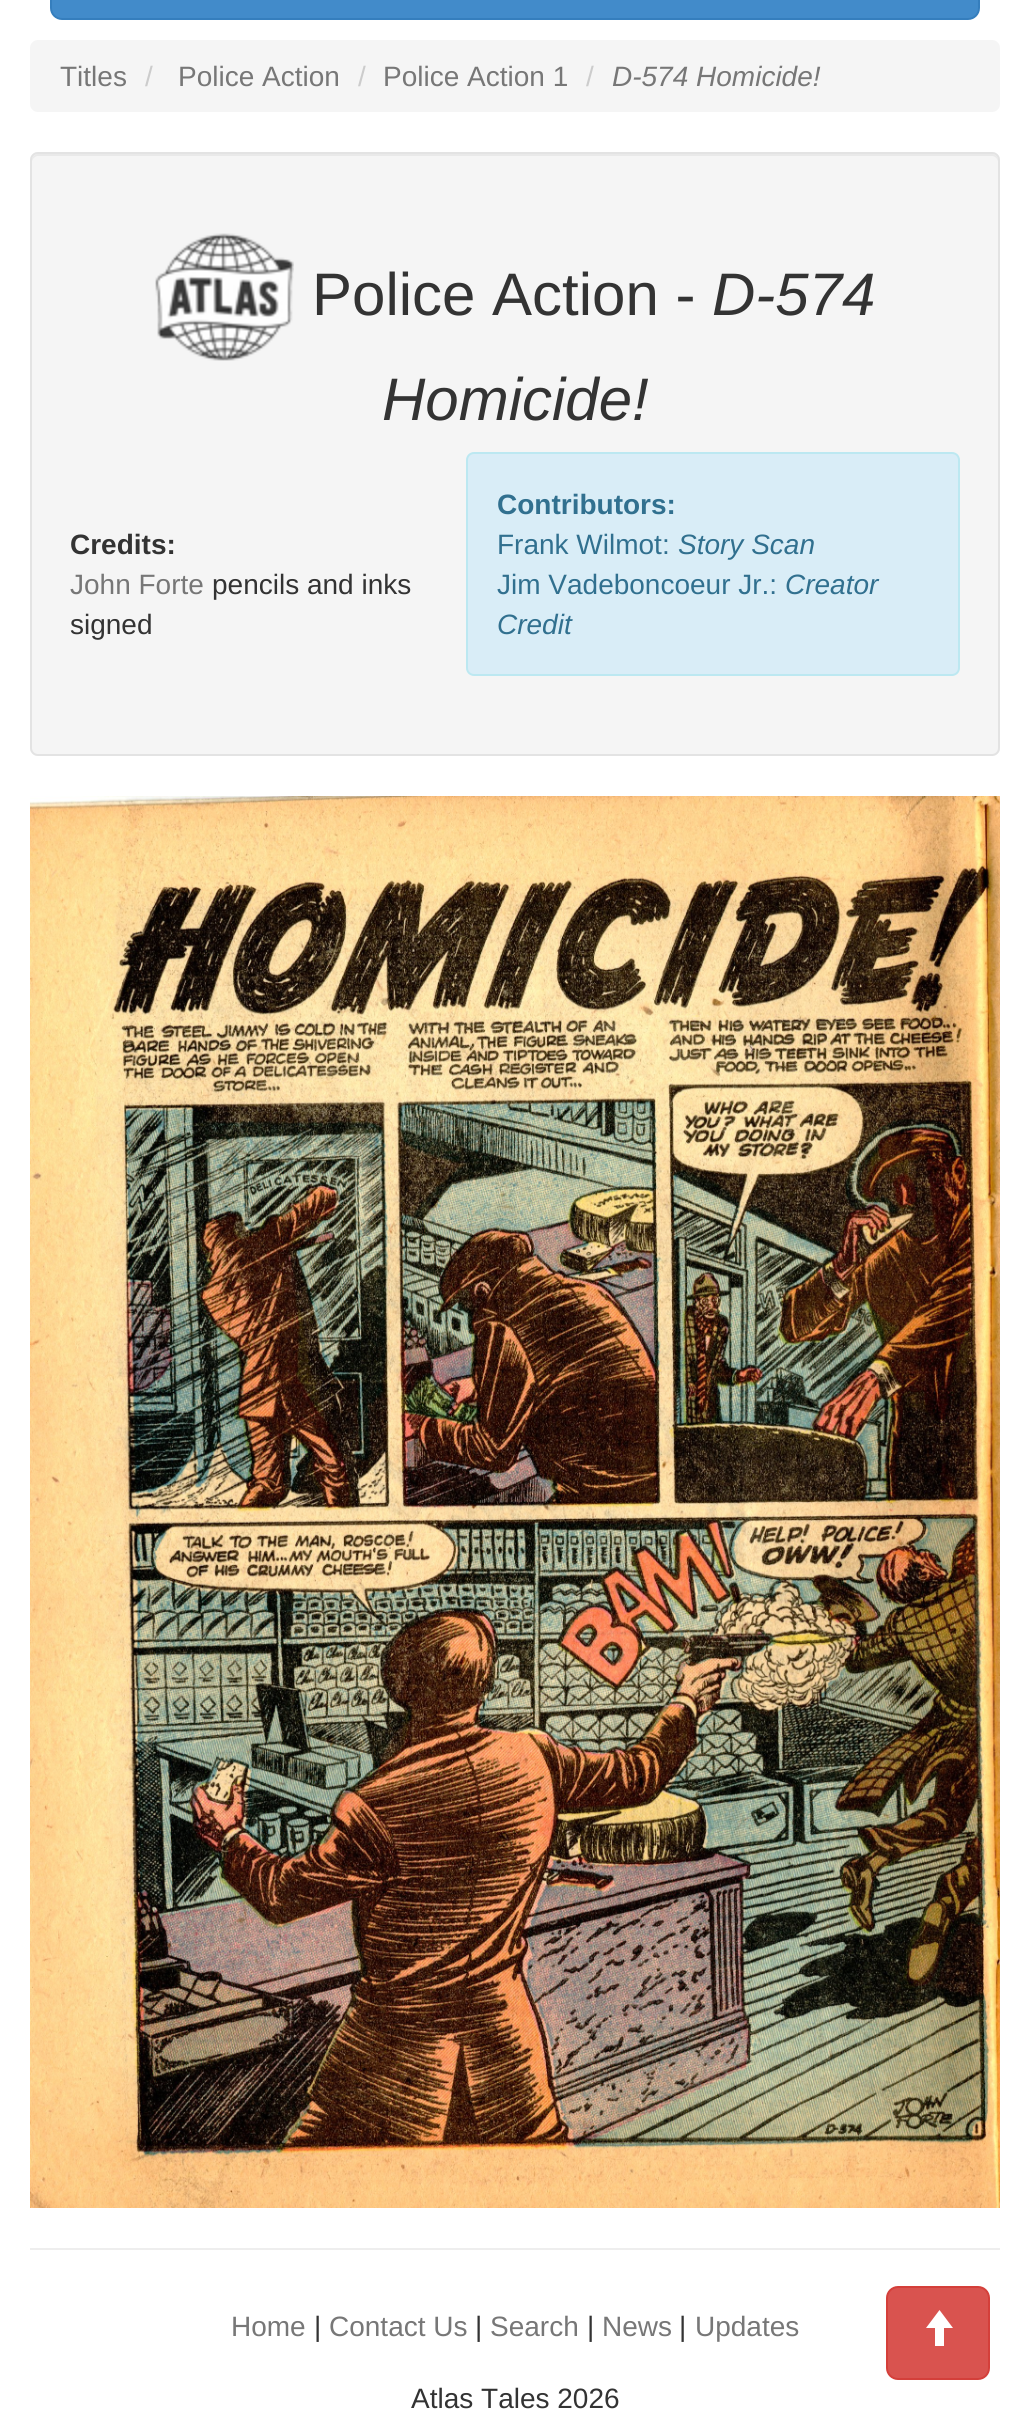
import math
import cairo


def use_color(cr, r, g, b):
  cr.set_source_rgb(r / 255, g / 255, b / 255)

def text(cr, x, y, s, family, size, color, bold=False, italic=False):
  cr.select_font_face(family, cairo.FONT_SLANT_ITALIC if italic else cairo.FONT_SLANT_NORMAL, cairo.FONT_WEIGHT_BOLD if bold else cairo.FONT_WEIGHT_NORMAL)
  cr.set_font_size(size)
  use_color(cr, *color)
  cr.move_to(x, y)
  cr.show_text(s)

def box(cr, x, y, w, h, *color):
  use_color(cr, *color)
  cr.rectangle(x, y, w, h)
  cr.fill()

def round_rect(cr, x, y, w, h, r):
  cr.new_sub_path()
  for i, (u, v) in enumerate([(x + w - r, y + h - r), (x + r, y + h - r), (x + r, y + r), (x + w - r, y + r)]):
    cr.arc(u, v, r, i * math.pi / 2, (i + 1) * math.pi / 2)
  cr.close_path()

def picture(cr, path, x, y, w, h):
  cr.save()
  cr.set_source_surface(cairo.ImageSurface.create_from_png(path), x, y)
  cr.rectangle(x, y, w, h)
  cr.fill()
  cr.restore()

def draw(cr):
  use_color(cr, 255, 255, 255)
  cr.paint()
  use_color(cr, 66, 139, 202)
  round_rect(cr, 51, -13, 928, 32, 11)
  cr.fill_preserve()
  use_color(cr, 53, 126, 189)
  cr.stroke()
  use_color(cr, 245, 245, 245)
  round_rect(cr, 30, 40, 970, 72, 8)
  cr.fill()
  round_rect(cr, 30, 152, 970, 604, 8)
  cr.fill()
  use_color(cr, 233, 233, 233)
  cr.new_path()
  cr.move_to(38, 156)
  cr.line_to(992, 156)
  cr.curve_to(995, 156, 998, 159, 998, 162)
  cr.line_to(998, 160)
  cr.curve_to(998, 157, 995, 154, 992, 154)
  cr.line_to(38, 154)
  cr.curve_to(35, 154, 32, 157, 32, 160)
  cr.line_to(32, 162)
  cr.curve_to(32, 159, 35, 156, 38, 156)
  cr.close_path()
  cr.fill()
  round_rect(cr, 31, 153, 968, 602, 7)
  use_color(cr, 227, 227, 227)
  cr.stroke()
  picture(cr, "img_01.png", 155, 233, 139, 128)
  use_color(cr, 217, 237, 247)
  round_rect(cr, 467, 453, 492, 222, 7)
  cr.fill_preserve()
  use_color(cr, 188, 232, 241)
  cr.stroke()
  picture(cr, "img_02.png", 30, 796, 970, 1412)
  box(cr, 30, 2248, 970, 2, 238, 238, 238)
  use_color(cr, 217, 83, 79)
  round_rect(cr, 887, 2287, 102, 92, 11)
  cr.fill_preserve()
  use_color(cr, 212, 63, 58)
  cr.stroke()
  use_color(cr, 255, 255, 255)
  cr.new_path()
  cr.move_to(926, 2328)
  cr.line_to(939.5, 2310)
  cr.line_to(953, 2328)
  cr.line_to(944, 2328)
  cr.line_to(944, 2346)
  cr.line_to(935, 2346)
  cr.line_to(935, 2328)
  cr.close_path()
  cr.fill()
  text(cr, 60, 86, "Titles", "Liberation Sans", 28, (119, 119, 119))
  text(cr, 145, 86, "/", "Liberation Sans", 28, (204, 204, 204))
  text(cr, 178, 86, "Police Action", "Liberation Sans", 28, (119, 119, 119))
  text(cr, 358, 86, "/", "Liberation Sans", 28, (204, 204, 204))
  text(cr, 383, 86, "Police Action 1", "Liberation Sans", 28, (119, 119, 119))
  text(cr, 586, 86, "/", "Liberation Sans", 28, (204, 204, 204))
  text(cr, 612, 86, "D-574 Homicide!", "Liberation Sans", 28, (119, 119, 119), italic=True)
  text(cr, 312, 315, "Police Action -", "Liberation Sans", 60, (51, 51, 51))
  text(cr, 712, 315, "D-574", "Liberation Sans", 60, (51, 51, 51), italic=True)
  text(cr, 382, 420, "Homicide!", "Liberation Sans", 60, (51, 51, 51), italic=True)
  text(cr, 70, 554, "Credits:", "Liberation Sans", 28, (51, 51, 51), bold=True)
  text(cr, 70, 594, "John Forte", "Liberation Sans", 28, (119, 119, 119))
  text(cr, 212, 594, "pencils and inks", "Liberation Sans", 28, (51, 51, 51))
  text(cr, 70, 634, "signed", "Liberation Sans", 28, (51, 51, 51))
  text(cr, 497, 514, "Contributors:", "Liberation Sans", 28, (49, 112, 143), bold=True)
  text(cr, 497, 554, "Frank Wilmot:", "Liberation Sans", 28, (49, 112, 143))
  text(cr, 678, 554, "Story Scan", "Liberation Sans", 28, (49, 112, 143), italic=True)
  text(cr, 497, 594, "Jim Vadeboncoeur Jr.:", "Liberation Sans", 28, (49, 112, 143))
  text(cr, 785, 594, "Creator", "Liberation Sans", 28, (49, 112, 143), italic=True)
  text(cr, 497, 634, "Credit", "Liberation Sans", 28, (49, 112, 143), italic=True)
  text(cr, 231, 2336, "Home", "Liberation Sans", 28, (119, 119, 119))
  text(cr, 314, 2336, "|", "Liberation Sans", 28, (51, 51, 51))
  text(cr, 329, 2336, "Contact Us", "Liberation Sans", 28, (119, 119, 119))
  text(cr, 475, 2336, "|", "Liberation Sans", 28, (51, 51, 51))
  text(cr, 490, 2336, "Search", "Liberation Sans", 28, (119, 119, 119))
  text(cr, 587, 2336, "|", "Liberation Sans", 28, (51, 51, 51))
  text(cr, 602, 2336, "News", "Liberation Sans", 28, (119, 119, 119))
  text(cr, 679, 2336, "|", "Liberation Sans", 28, (51, 51, 51))
  text(cr, 695, 2336, "Updates", "Liberation Sans", 28, (119, 119, 119))
  text(cr, 411, 2408, "Atlas Tales 2026", "Liberation Sans", 28, (51, 51, 51))


surface = cairo.ImageSurface(cairo.FORMAT_RGB24, 1030, 2419)
cr = cairo.Context(surface)
options = cairo.FontOptions()
options.set_hint_metrics(cairo.HINT_METRICS_OFF)
options.set_hint_style(cairo.HINT_STYLE_NONE)
cr.set_font_options(options)
cr.set_miter_limit(4)
draw(cr)
surface.write_to_png("out.png")
